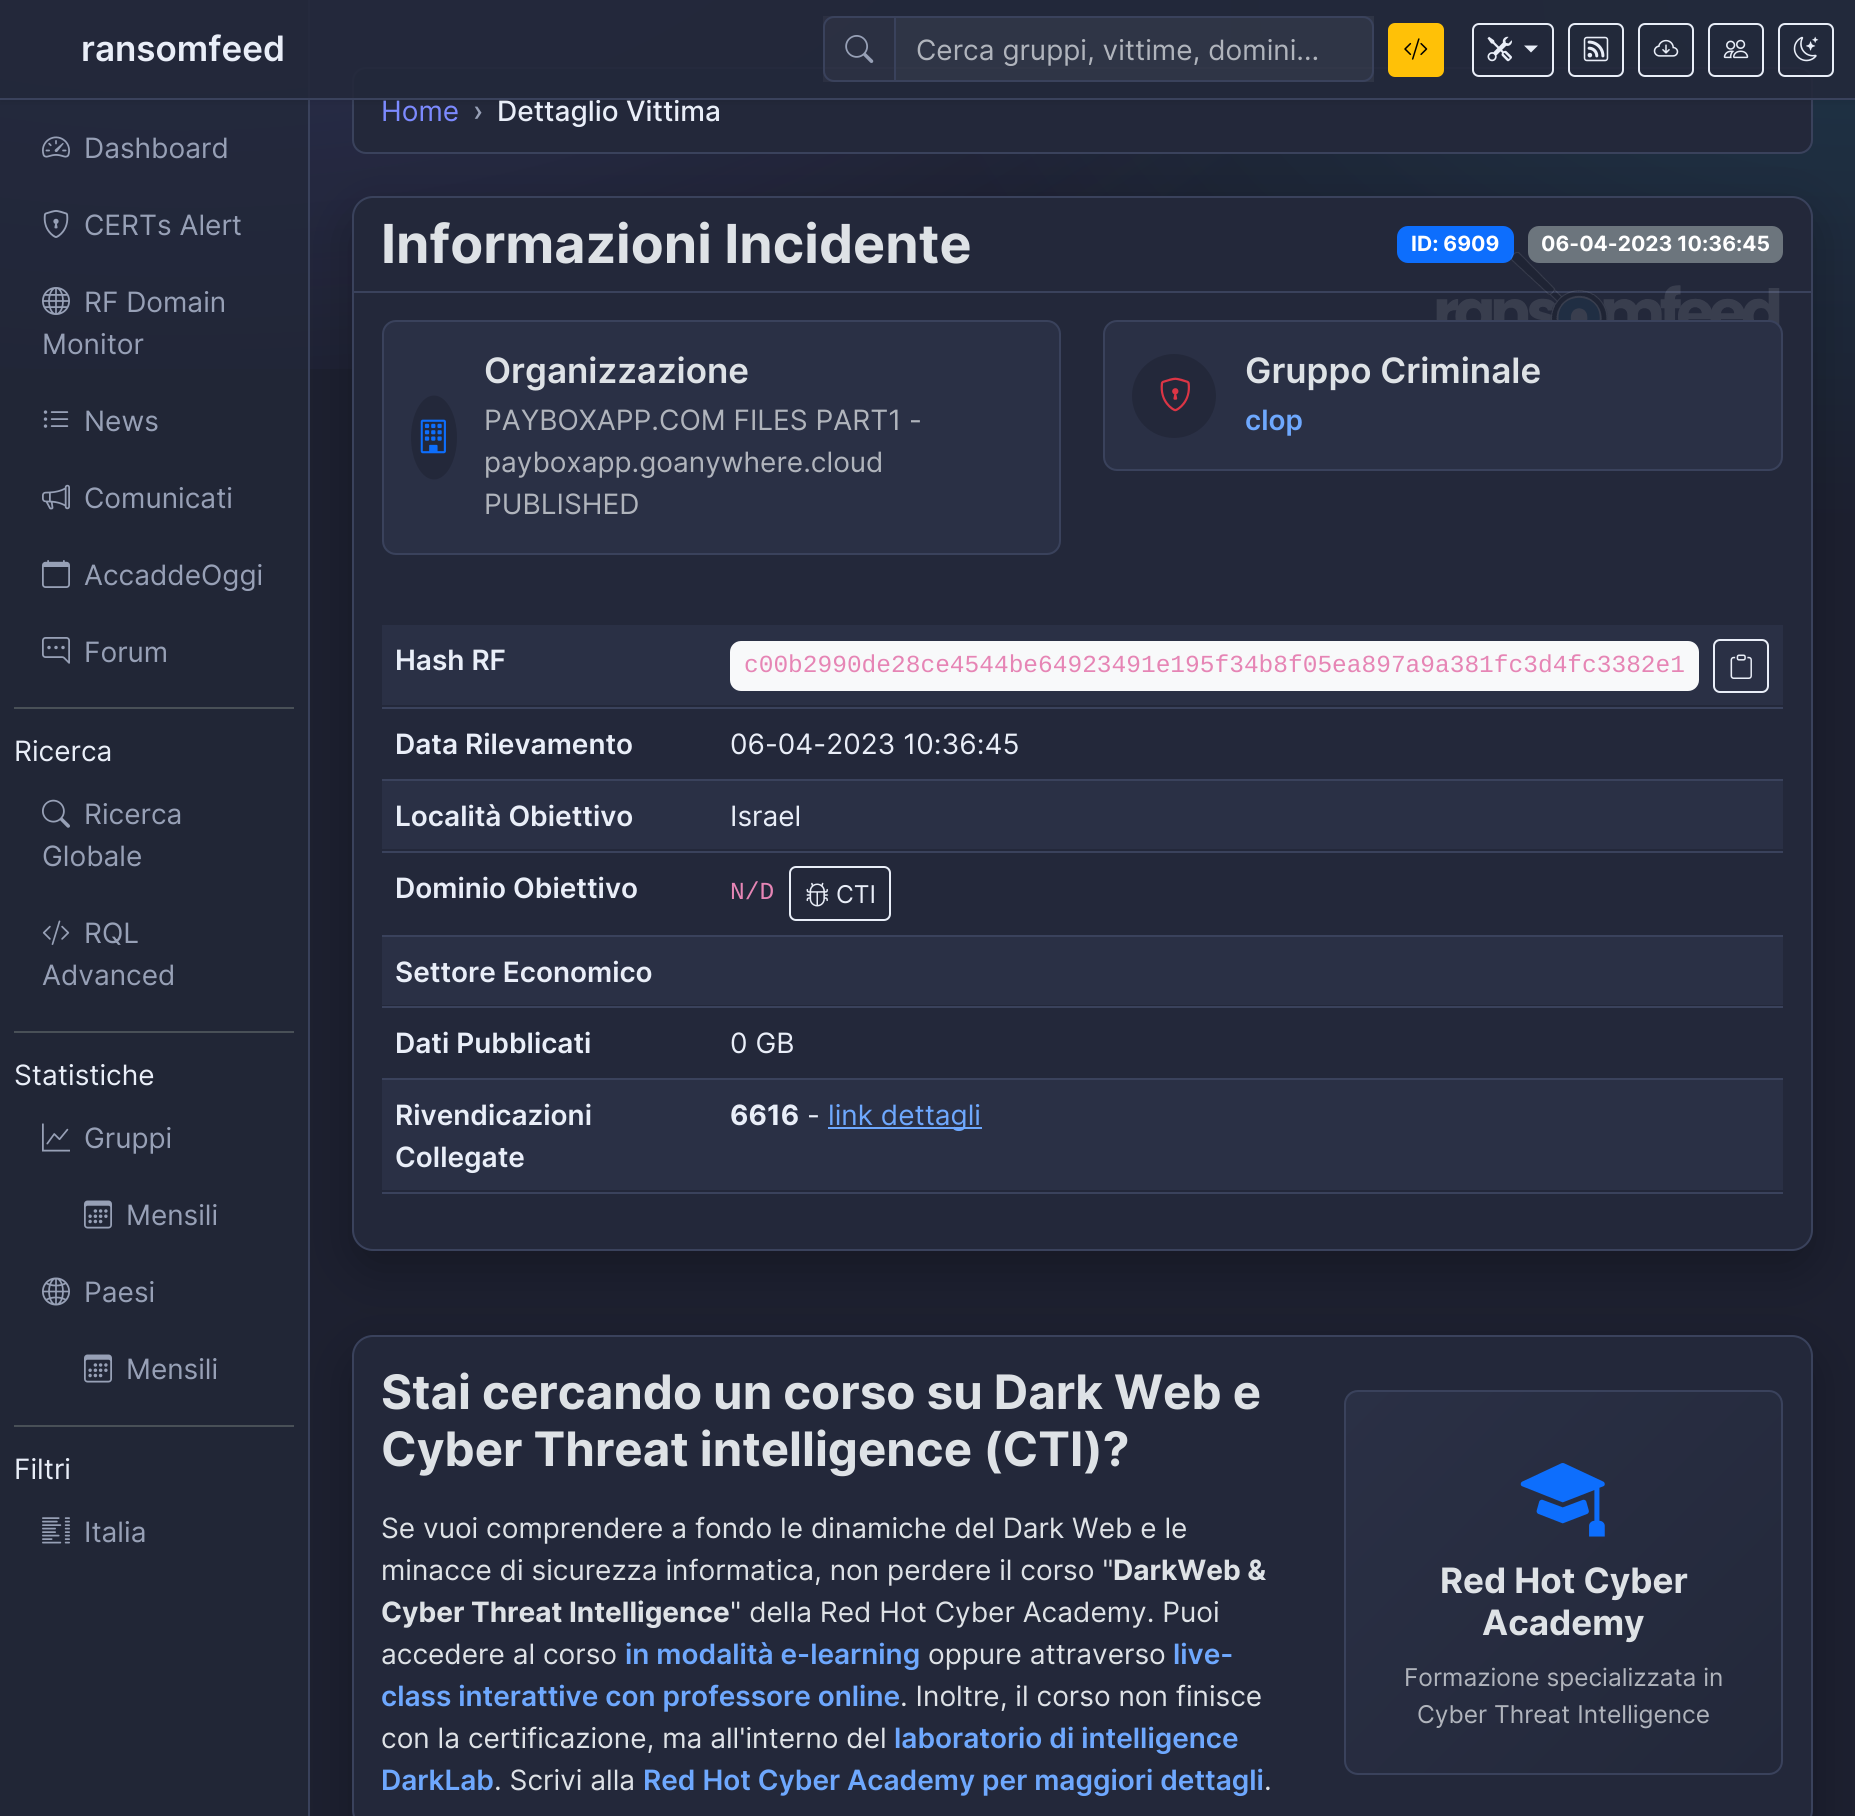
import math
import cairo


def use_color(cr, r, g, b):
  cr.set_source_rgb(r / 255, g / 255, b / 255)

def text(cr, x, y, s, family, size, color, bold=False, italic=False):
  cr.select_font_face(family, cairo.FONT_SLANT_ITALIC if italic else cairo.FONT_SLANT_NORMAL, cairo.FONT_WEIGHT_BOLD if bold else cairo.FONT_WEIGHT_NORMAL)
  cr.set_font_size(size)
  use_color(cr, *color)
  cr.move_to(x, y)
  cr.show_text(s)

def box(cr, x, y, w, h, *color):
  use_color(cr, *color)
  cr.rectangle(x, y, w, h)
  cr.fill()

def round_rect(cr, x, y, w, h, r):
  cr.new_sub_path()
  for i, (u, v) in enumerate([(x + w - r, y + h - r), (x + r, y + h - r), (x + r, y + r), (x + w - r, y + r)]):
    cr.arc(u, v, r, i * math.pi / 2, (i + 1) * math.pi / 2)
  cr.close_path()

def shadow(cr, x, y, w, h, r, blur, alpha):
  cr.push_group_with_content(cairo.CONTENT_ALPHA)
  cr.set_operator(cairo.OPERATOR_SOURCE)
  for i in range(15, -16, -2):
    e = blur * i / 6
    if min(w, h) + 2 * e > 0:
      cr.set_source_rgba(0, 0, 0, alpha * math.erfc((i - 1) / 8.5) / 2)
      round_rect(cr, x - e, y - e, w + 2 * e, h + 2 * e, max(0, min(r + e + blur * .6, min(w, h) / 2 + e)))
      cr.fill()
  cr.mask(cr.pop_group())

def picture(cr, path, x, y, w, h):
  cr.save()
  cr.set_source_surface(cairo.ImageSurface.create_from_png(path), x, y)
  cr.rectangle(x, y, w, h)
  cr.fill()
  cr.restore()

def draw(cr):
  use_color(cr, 255, 255, 255)
  cr.paint()
  gradient = cairo.RadialGradient(0, 0, 0, 0, 0, 1)
  gradient.set_matrix(cairo.Matrix(1 / 1575, 0, 0, 1 / 875, -1 * 1855 / 1575, -1 * 0 / 875))
  gradient.add_color_stop_rgba(0, 0.118, 0.204, 0.278, 1)
  gradient.add_color_stop_rgba(0.6, 0.114, 0.125, 0.188, 1)
  cr.set_source(gradient)
  cr.rectangle(0, 0, 1855, 1816)
  cr.fill()
  gradient = cairo.RadialGradient(0, 0, 0, 0, 0, 1)
  gradient.set_matrix(cairo.Matrix(1 / 2100, 0, 0, 1 / 1050, -1 * 186 / 2100, -1 * -182 / 1050))
  gradient.add_color_stop_rgba(0, 0.486, 0.541, 1, 0.18)
  gradient.add_color_stop_rgba(0.6, 0.486, 0.541, 1, 0)
  cr.set_source(gradient)
  cr.rectangle(0, 0, 1231, 369)
  cr.fill()
  cr.set_source_rgba(0.137, 0.157, 0.227, 0.7)
  cr.rectangle(0, 0, 308, 1816)
  cr.fill()
  box(cr, 308, 0, 2, 1816, 58, 66, 92)
  use_color(cr, 35, 40, 58)
  round_rect(cr, 353, 68, 1459, 85, 13)
  cr.fill_preserve()
  use_color(cr, 58, 66, 92)
  cr.stroke()
  cr.save()
  cr.rectangle(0, 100, 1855, 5)
  cr.clip()
  use_color(cr, 0, 0, 0)
  shadow(cr, 0, 4, 1855, 99, 0, 3.5, 0.07)
  cr.restore()
  cr.set_source_rgba(0.137, 0.157, 0.227, 0.9)
  cr.rectangle(0, 0, 1855, 98)
  cr.fill()
  cr.set_source_rgba(1, 1, 1, 0.04)
  cr.rectangle(823, 16, 71, 66)
  cr.fill()
  cr.new_path()
  cr.move_to(834, 17)
  cr.line_to(895, 17)
  cr.line_to(895, 81)
  cr.line_to(834, 81)
  cr.curve_to(828.5, 81, 824, 76.5, 824, 71)
  cr.line_to(824, 27)
  cr.curve_to(824, 21.5, 828.5, 17, 834, 17)
  cr.close_path()
  use_color(cr, 58, 66, 92)
  cr.stroke()
  picture(cr, "img_01.png", 845, 35, 29, 28)
  cr.set_source_rgba(1, 1, 1, 0.06)
  cr.rectangle(896, 16, 478, 66)
  cr.fill()
  cr.new_path()
  cr.move_to(895, 17)
  cr.line_to(1363, 17)
  cr.curve_to(1368.5, 17, 1373, 21.5, 1373, 27)
  cr.line_to(1373, 71)
  cr.curve_to(1373, 76.5, 1368.5, 81, 1363, 81)
  cr.line_to(895, 81)
  cr.close_path()
  use_color(cr, 58, 66, 92)
  cr.stroke()
  use_color(cr, 255, 193, 7)
  round_rect(cr, 1389, 24, 54, 52, 6)
  cr.fill_preserve()
  cr.stroke()
  picture(cr, "img_02.png", 1404, 38, 24, 22)
  round_rect(cr, 1473, 24, 80, 52, 6)
  use_color(cr, 233, 238, 248)
  cr.stroke()
  picture(cr, "img_03.png", 1487, 36, 25, 26)
  cr.new_path()
  cr.move_to(1524, 45.5)
  cr.line_to(1538, 45.5)
  cr.line_to(1531, 52.5)
  cr.close_path()
  cr.fill()
  round_rect(cr, 1569, 24, 54, 52, 6)
  cr.stroke()
  picture(cr, "img_04.png", 1583, 36, 26, 26)
  round_rect(cr, 1639, 24, 54, 52, 6)
  cr.stroke()
  picture(cr, "img_05.png", 1653, 39, 26, 18)
  round_rect(cr, 1709, 24, 54, 52, 6)
  cr.stroke()
  picture(cr, "img_06.png", 1723, 39, 26, 20)
  round_rect(cr, 1779, 24, 54, 52, 6)
  cr.stroke()
  picture(cr, "img_07.png", 1793, 36, 26, 26)
  picture(cr, "img_08.png", 42, 136, 28, 22)
  picture(cr, "img_09.png", 43, 210, 26, 28)
  picture(cr, "img_10.png", 42, 287, 28, 28)
  picture(cr, "img_11.png", 43, 410, 26, 18)
  picture(cr, "img_12.png", 42, 484, 28, 26)
  picture(cr, "img_13.png", 42, 560, 28, 28)
  picture(cr, "img_14.png", 42, 637, 28, 27)
  use_color(cr, 0, 0, 0)
  shadow(cr, 352, 214, 1461, 1055, 21, 26, 0.25)
  box(cr, 14, 707, 280, 2, 73, 80, 87)
  picture(cr, "img_15.png", 42, 799, 28, 29)
  picture(cr, "img_16.png", 42, 920, 28, 25)
  box(cr, 14, 1031, 280, 2, 73, 80, 87)
  picture(cr, "img_17.png", 42, 1123, 28, 29)
  picture(cr, "img_18.png", 84, 1200, 28, 29)
  picture(cr, "img_19.png", 42, 1277, 28, 29)
  picture(cr, "img_18.png", 84, 1354, 28, 29)
  use_color(cr, 0, 0, 0)
  shadow(cr, 352, 1353, 1461, 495, 21, 26, 0.25)
  box(cr, 14, 1425, 280, 2, 73, 80, 87)
  picture(cr, "img_20.png", 42, 1517, 28, 27)
  use_color(cr, 35, 40, 58)
  round_rect(cr, 353, 197, 1459, 1053, 20)
  cr.fill_preserve()
  use_color(cr, 58, 66, 92)
  cr.stroke()
  box(cr, 354, 291, 1457, 2, 58, 66, 92)
  use_color(cr, 13, 110, 253)
  round_rect(cr, 1397, 226, 117, 37, 11)
  cr.fill()
  use_color(cr, 108, 117, 125)
  round_rect(cr, 1528, 226, 255, 37, 11)
  cr.fill()
  picture(cr, "img_21.png", 1436, 252, 344, 74)
  use_color(cr, 42, 48, 69)
  round_rect(cr, 383, 321, 677, 233, 13)
  cr.fill_preserve()
  use_color(cr, 58, 66, 92)
  cr.stroke()
  use_color(cr, 35, 40, 58)
  cr.new_path()
  cr.move_to(434, 395.5)
  cr.curve_to(446.5, 395.5, 457, 414.5, 457, 437.5)
  cr.curve_to(457, 460.5, 446.5, 479.5, 434, 479.5)
  cr.curve_to(421.5, 479.5, 411, 460.5, 411, 437.5)
  cr.curve_to(411, 414.5, 421.5, 395.5, 434, 395.5)
  cr.close_path()
  cr.fill()
  picture(cr, "img_22.png", 420, 419, 26, 35)
  use_color(cr, 42, 48, 69)
  round_rect(cr, 1104, 321, 678, 149, 13)
  cr.fill_preserve()
  use_color(cr, 58, 66, 92)
  cr.stroke()
  use_color(cr, 35, 40, 58)
  cr.arc(1174, 396, 42, 0, 2 * math.pi)
  cr.fill()
  picture(cr, "img_23.png", 1160, 377, 30, 35)
  box(cr, 382, 625, 1401, 80, 42, 48, 69)
  box(cr, 382, 707, 1401, 2, 58, 66, 92)
  use_color(cr, 248, 249, 250)
  round_rect(cr, 730, 641, 969, 50, 11)
  cr.fill()
  round_rect(cr, 1714, 640, 54, 52, 6)
  use_color(cr, 233, 238, 248)
  cr.stroke()
  picture(cr, "img_24.png", 1730, 654, 22, 25)
  box(cr, 382, 779, 1401, 2, 58, 66, 92)
  box(cr, 382, 781, 1401, 68, 42, 48, 69)
  box(cr, 382, 851, 1401, 2, 58, 66, 92)
  box(cr, 382, 935, 1401, 2, 58, 66, 92)
  round_rect(cr, 790, 867, 100, 53, 6)
  use_color(cr, 233, 238, 248)
  cr.stroke()
  picture(cr, "img_25.png", 806, 882, 22, 25)
  box(cr, 382, 937, 1401, 68, 42, 48, 69)
  box(cr, 382, 1006, 1401, 2, 58, 66, 92)
  box(cr, 382, 1078, 1401, 2, 58, 66, 92)
  box(cr, 382, 1080, 1401, 110, 42, 48, 69)
  box(cr, 382, 1192, 1401, 2, 58, 66, 92)
  box(cr, 828, 1127, 154, 2, 110, 168, 254)
  use_color(cr, 35, 40, 58)
  round_rect(cr, 353, 1336, 1459, 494, 20)
  cr.fill_preserve()
  use_color(cr, 58, 66, 92)
  cr.stroke()
  cr.save()
  round_rect(cr, 1344, 1390, 439, 385, 14)
  cr.clip()
  gradient = cairo.LinearGradient(1359, 1378, 1768, 1786)
  gradient.add_color_stop_rgba(0, 0.165, 0.188, 0.271, 1)
  gradient.add_color_stop_rgba(1, 0.137, 0.157, 0.227, 1)
  cr.set_source(gradient)
  cr.rectangle(1346, 1391, 436, 382)
  cr.fill()
  cr.restore()
  round_rect(cr, 1345, 1391, 437, 383, 13)
  cr.stroke()
  picture(cr, "img_26.png", 1520, 1463, 85, 74)
  text(cr, 81, 61, "ransomfeed", "Inter SemiBold", 35, (233, 238, 248))
  text(cr, 916, 60, "Cerca gruppi, vittime, domini…", "Inter", 28, (176, 180, 188))
  text(cr, 84, 158, "Dashboard", "Inter", 28, (151, 160, 182))
  text(cr, 84, 235, "CERTs Alert", "Inter", 28, (151, 160, 182))
  text(cr, 84, 312, "RF Domain", "Inter", 28, (151, 160, 182))
  text(cr, 42, 354, "Monitor", "Inter", 28, (151, 160, 182))
  text(cr, 84, 431, "News", "Inter", 28, (151, 160, 182))
  text(cr, 84, 508, "Comunicati", "Inter", 28, (151, 160, 182))
  text(cr, 84, 585, "AccaddeOggi", "Inter", 28, (151, 160, 182))
  text(cr, 84, 662, "Forum", "Inter", 28, (151, 160, 182))
  text(cr, 14, 761, "Ricerca", "Inter", 28, (233, 238, 248))
  text(cr, 84, 824, "Ricerca", "Inter", 28, (151, 160, 182))
  text(cr, 42, 866, "Globale", "Inter", 28, (151, 160, 182))
  text(cr, 84, 943, "RQL", "Inter", 28, (151, 160, 182))
  text(cr, 42, 985, "Advanced", "Inter", 28, (151, 160, 182))
  text(cr, 14, 1085, "Statistiche", "Inter", 28, (233, 238, 248))
  text(cr, 84, 1148, "Gruppi", "Inter", 28, (151, 160, 182))
  text(cr, 126, 1225, "Mensili", "Inter", 28, (151, 160, 182))
  text(cr, 84, 1302, "Paesi", "Inter", 28, (151, 160, 182))
  text(cr, 126, 1379, "Mensili", "Inter", 28, (151, 160, 182))
  text(cr, 14, 1479, "Filtri", "Inter", 28, (233, 238, 248))
  text(cr, 84, 1542, "Italia", "Inter", 28, (151, 160, 182))
  text(cr, 381, 121, "Home", "Inter", 28, (124, 138, 255))
  text(cr, 473, 121, "›", "Inter Medium", 28, (151, 160, 182))
  text(cr, 497, 121, "Dettaglio Vittima", "Inter Medium", 28, (233, 238, 248))
  box(cr, 0, 98, 1855, 2, 58, 66, 92)
  text(cr, 381, 263, "Informazioni Incidente", "Inter", 53.75, (222, 226, 230), bold=True)
  text(cr, 1411, 251, "ID: 6909", "Inter", 21, (255, 255, 255), bold=True)
  text(cr, 1541, 251, "06-04-2023 10:36:45", "Inter", 21, (255, 255, 255), bold=True)
  text(cr, 484, 383, "Organizzazione", "Inter SemiBold", 35, (222, 226, 230))
  text(cr, 484, 430, "PAYBOXAPP.COM FILES PART1 -", "Inter", 28, (176, 180, 188))
  text(cr, 484, 472, "payboxapp.goanywhere.cloud", "Inter", 28, (176, 180, 188))
  text(cr, 484, 514, "PUBLISHED", "Inter", 28, (176, 180, 188))
  text(cr, 1245, 383, "Gruppo Criminale", "Inter SemiBold", 35, (222, 226, 230))
  text(cr, 1245, 430, "clop", "Inter SemiBold", 28, (110, 168, 254))
  text(cr, 395, 670, "Hash RF", "Inter SemiBold", 28, (233, 238, 248))
  text(cr, 744, 672, "c00b2990de28ce4544be64923491e195f34b8f05ea897a9a381fc3d4fc3382e1", "Liberation Mono", 24.5, (230, 133, 181))
  text(cr, 395, 754, "Data Rilevamento", "Inter SemiBold", 28, (233, 238, 248))
  text(cr, 730, 754, "06-04-2023 10:36:45", "Inter", 28, (233, 238, 248))
  text(cr, 395, 826, "Località Obiettivo", "Inter SemiBold", 28, (233, 238, 248))
  text(cr, 730, 826, "Israel", "Inter", 28, (233, 238, 248))
  text(cr, 395, 898, "Dominio Obiettivo", "Inter SemiBold", 28, (233, 238, 248))
  text(cr, 730, 899, "N/D", "Liberation Mono", 24.5, (230, 133, 181))
  text(cr, 836, 903, "CTI", "Inter", 24.5, (233, 238, 248))
  text(cr, 395, 982, "Settore Economico", "Inter SemiBold", 28, (233, 238, 248))
  text(cr, 395, 1053, "Dati Pubblicati", "Inter SemiBold", 28, (233, 238, 248))
  text(cr, 730, 1053, "0 GB", "Inter", 28, (233, 238, 248))
  text(cr, 395, 1125, "Rivendicazioni", "Inter SemiBold", 28, (233, 238, 248))
  text(cr, 395, 1167, "Collegate", "Inter SemiBold", 28, (233, 238, 248))
  text(cr, 730, 1125, "6616", "Inter", 28, (233, 238, 248), bold=True)
  text(cr, 807, 1125, "-", "Inter", 28, (233, 238, 248))
  text(cr, 828, 1125, "link dettagli", "Inter", 28, (110, 168, 254))
  text(cr, 381, 1409, "Stai cercando un corso su Dark Web e", "Inter", 47.5, (222, 226, 230), bold=True)
  text(cr, 381, 1466, "Cyber Threat intelligence (CTI)?", "Inter", 47.5, (222, 226, 230), bold=True)
  text(cr, 381, 1538, "Se vuoi comprendere a fondo le dinamiche del Dark Web e le", "Inter", 28, (222, 226, 230))
  text(cr, 381, 1580, "minacce di sicurezza informatica, non perdere il corso \"", "Inter", 28, (222, 226, 230))
  text(cr, 1113, 1580, "DarkWeb &", "Inter", 28, (222, 226, 230), bold=True)
  text(cr, 381, 1622, "Cyber Threat Intelligence", "Inter", 28, (222, 226, 230), bold=True)
  text(cr, 730, 1622, "\" della Red Hot Cyber Academy. Puoi", "Inter", 28, (222, 226, 230))
  text(cr, 381, 1664, "accedere al corso", "Inter", 28, (222, 226, 230))
  text(cr, 625, 1664, "in modalità e-learning", "Inter SemiBold", 28, (110, 168, 254))
  text(cr, 928, 1664, "oppure attraverso", "Inter", 28, (222, 226, 230))
  text(cr, 1173, 1664, "live-", "Inter SemiBold", 28, (110, 168, 254))
  text(cr, 381, 1706, "class interattive con professore online", "Inter SemiBold", 28, (110, 168, 254))
  text(cr, 900, 1706, ". Inoltre, il corso non finisce", "Inter", 28, (222, 226, 230))
  text(cr, 381, 1748, "con la certificazione, ma all'interno del", "Inter", 28, (222, 226, 230))
  text(cr, 894, 1748, "laboratorio di intelligence", "Inter SemiBold", 28, (110, 168, 254))
  text(cr, 381, 1790, "DarkLab", "Inter SemiBold", 28, (110, 168, 254))
  text(cr, 494, 1790, ". Scrivi alla", "Inter", 28, (222, 226, 230))
  text(cr, 643, 1790, "Red Hot Cyber Academy per maggiori dettagli", "Inter SemiBold", 28, (110, 168, 254))
  text(cr, 1264, 1790, ".", "Inter", 28, (222, 226, 230))
  text(cr, 1440, 1593, "Red Hot Cyber", "Inter", 35, (222, 226, 230), bold=True)
  text(cr, 1482, 1635, "Academy", "Inter", 35, (222, 226, 230), bold=True)
  text(cr, 1404, 1686, "Formazione specializzata in", "Inter", 24.5, (176, 180, 188))
  text(cr, 1417, 1723, "Cyber Threat Intelligence", "Inter", 24.5, (176, 180, 188))


surface = cairo.ImageSurface(cairo.FORMAT_RGB24, 1855, 1816)
cr = cairo.Context(surface)
options = cairo.FontOptions()
options.set_hint_metrics(cairo.HINT_METRICS_OFF)
options.set_hint_style(cairo.HINT_STYLE_NONE)
cr.set_font_options(options)
cr.set_miter_limit(4)
draw(cr)
surface.write_to_png("out.png")
